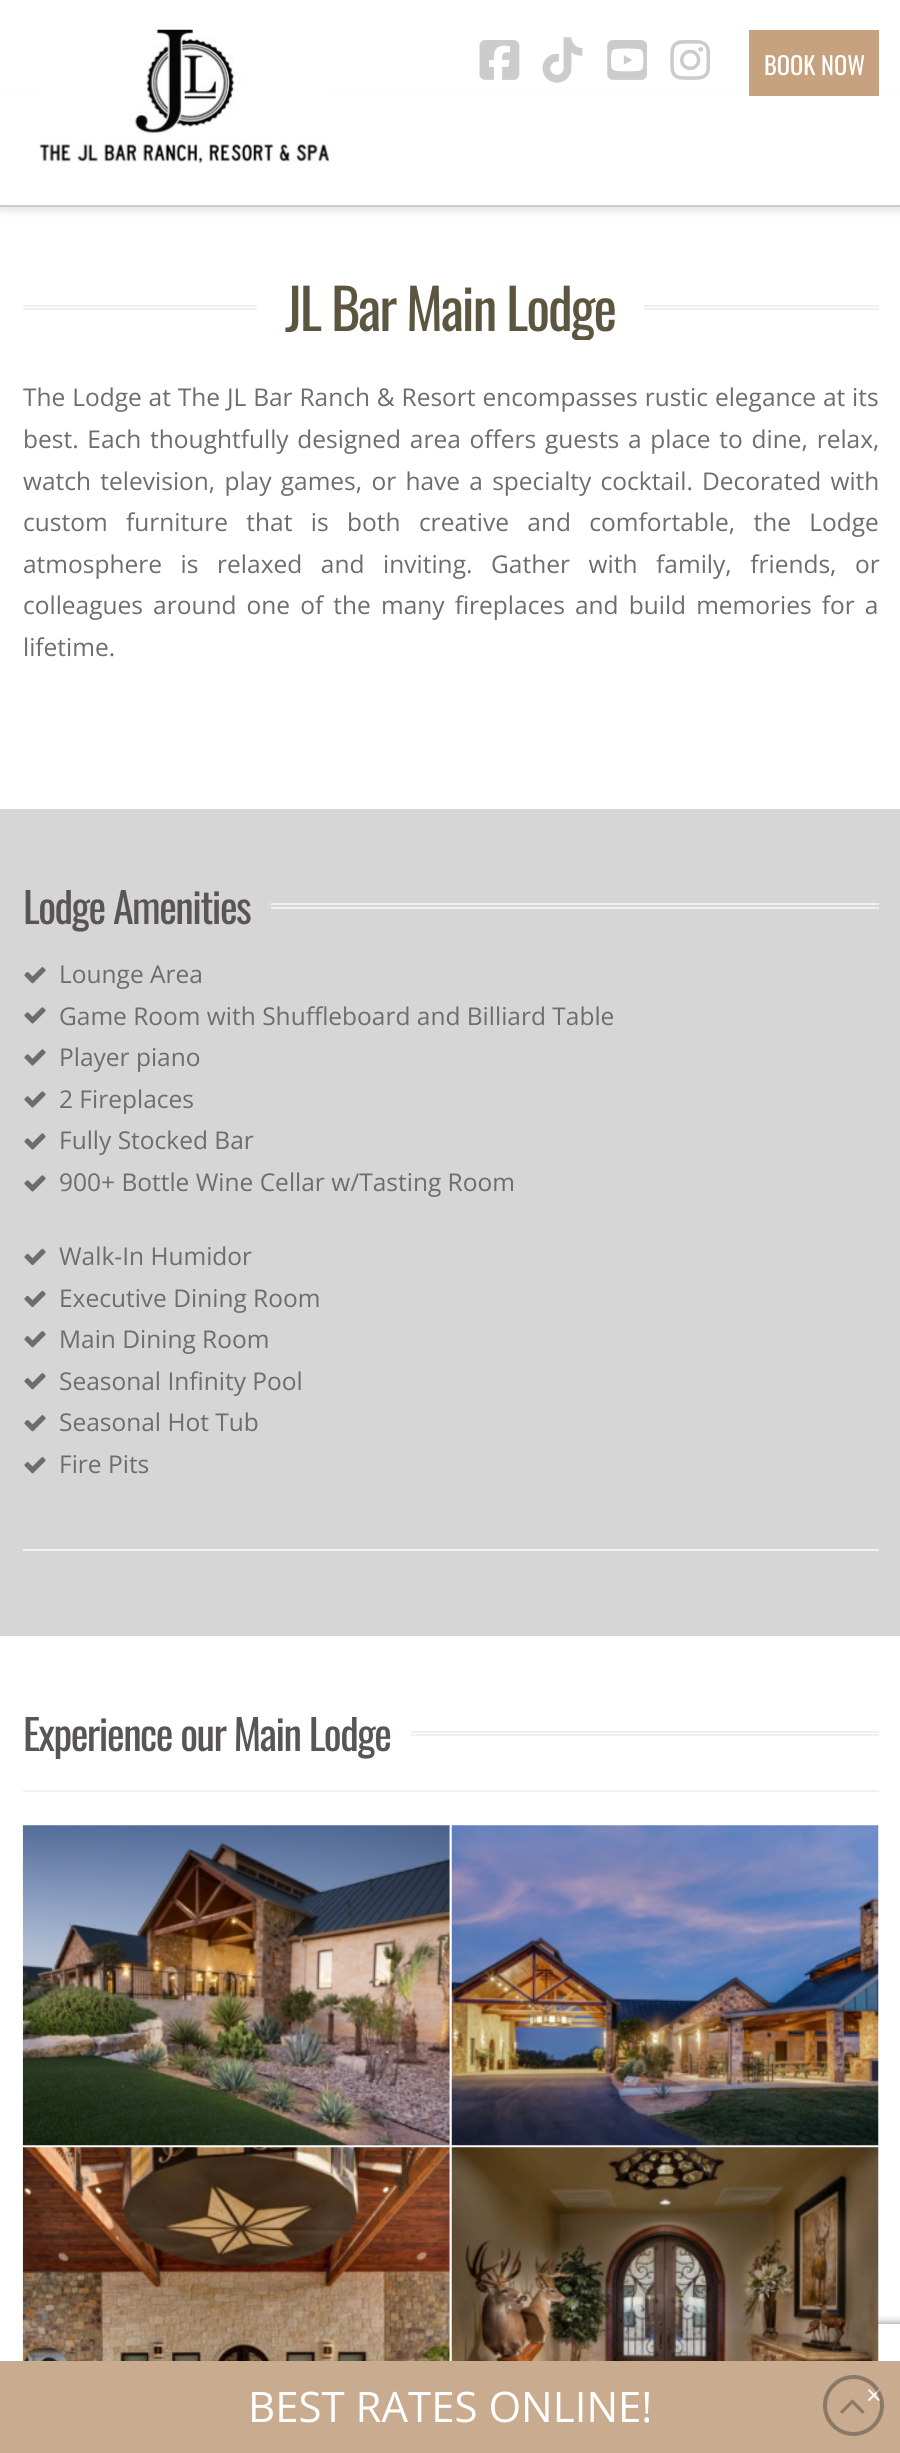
import math
import cairo


def use_color(cr, r, g, b):
  cr.set_source_rgb(r / 255, g / 255, b / 255)

def text(cr, x, y, s, family, size, color, bold=False, italic=False):
  cr.select_font_face(family, cairo.FONT_SLANT_ITALIC if italic else cairo.FONT_SLANT_NORMAL, cairo.FONT_WEIGHT_BOLD if bold else cairo.FONT_WEIGHT_NORMAL)
  cr.set_font_size(size)
  use_color(cr, *color)
  cr.move_to(x, y)
  cr.show_text(s)

def spaced_text(cr, x, y, s, letter, word):
  cr.move_to(x, y)
  for ch in s:
    cr.show_text(ch)
    cr.rel_move_to(letter + word * (ch == ' '), 0)

def box(cr, x, y, w, h, *color):
  use_color(cr, *color)
  cr.rectangle(x, y, w, h)
  cr.fill()

def round_rect(cr, x, y, w, h, r):
  cr.new_sub_path()
  for i, (u, v) in enumerate([(x + w - r, y + h - r), (x + r, y + h - r), (x + r, y + r), (x + w - r, y + r)]):
    cr.arc(u, v, r, i * math.pi / 2, (i + 1) * math.pi / 2)
  cr.close_path()

def shadow(cr, x, y, w, h, r, blur, alpha):
  cr.push_group_with_content(cairo.CONTENT_ALPHA)
  cr.set_operator(cairo.OPERATOR_SOURCE)
  for i in range(15, -16, -2):
    e = blur * i / 6
    if min(w, h) + 2 * e > 0:
      cr.set_source_rgba(0, 0, 0, alpha * math.erfc((i - 1) / 8.5) / 2)
      round_rect(cr, x - e, y - e, w + 2 * e, h + 2 * e, max(0, min(r + e + blur * .6, min(w, h) / 2 + e)))
      cr.fill()
  cr.mask(cr.pop_group())

def picture(cr, path, x, y, w, h):
  cr.save()
  cr.set_source_surface(cairo.ImageSurface.create_from_png(path), x, y)
  cr.rectangle(x, y, w, h)
  cr.fill()
  cr.restore()

def draw(cr):
  use_color(cr, 255, 255, 255)
  cr.paint()
  use_color(cr, 0, 0, 0)
  shadow(cr, 0, 102, 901, 108, 0, 4.5, 0.13)
  box(cr, 0, 96, 900, 109, 255, 255, 255)
  picture(cr, "img_01.png", 39, 29, 290, 134)
  picture(cr, "img_02.png", 479, 40, 41, 40)
  picture(cr, "img_03.png", 542, 37, 41, 46)
  picture(cr, "img_04.png", 607, 40, 40, 40)
  picture(cr, "img_05.png", 670, 40, 40, 40)
  box(cr, 749, 30, 130, 66, 199, 162, 127)
  box(cr, 0, 205, 900, 2, 204, 204, 204)
  box(cr, 23, 305, 234, 2, 240, 240, 240)
  box(cr, 23, 308, 234, 2, 240, 240, 240)
  box(cr, 644, 305, 235, 2, 240, 240, 240)
  box(cr, 644, 308, 235, 2, 240, 240, 240)
  box(cr, 0, 809, 900, 827, 214, 214, 214)
  box(cr, 271, 903, 608, 2, 240, 240, 240)
  box(cr, 271, 907, 608, 2, 240, 240, 240)
  picture(cr, "img_06.png", 24, 967, 22, 17)
  picture(cr, "img_07.png", 24, 1007, 22, 17)
  picture(cr, "img_07.png", 24, 1049, 22, 17)
  picture(cr, "img_07.png", 24, 1091, 22, 17)
  picture(cr, "img_07.png", 24, 1133, 22, 17)
  picture(cr, "img_07.png", 24, 1175, 22, 17)
  picture(cr, "img_08.png", 24, 1248, 22, 17)
  picture(cr, "img_08.png", 24, 1290, 22, 17)
  picture(cr, "img_06.png", 24, 1331, 22, 17)
  picture(cr, "img_06.png", 24, 1373, 22, 17)
  picture(cr, "img_06.png", 24, 1415, 22, 17)
  picture(cr, "img_06.png", 24, 1457, 22, 17)
  box(cr, 23, 1549, 856, 2, 242, 242, 242)
  box(cr, 411, 1731, 468, 2, 240, 240, 240)
  box(cr, 411, 1734, 468, 2, 240, 240, 240)
  box(cr, 23, 1790, 856, 2, 242, 242, 242)
  picture(cr, "img_09.png", 22, 1825, 428, 321)
  picture(cr, "img_10.png", 451, 1825, 428, 321)
  picture(cr, "img_11.png", 22, 2147, 428, 214)
  cr.save()
  cr.rectangle(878, 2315, 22, 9)
  cr.clip()
  use_color(cr, 128, 128, 128)
  shadow(cr, 779, 2324, 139, 105, 4, 4.5, 1)
  cr.restore()
  picture(cr, "img_12.png", 451, 2147, 428, 214)
  box(cr, 0, 2361, 900, 92, 201, 171, 143)
  text(cr, 764, 75, "BOOK NOW", "Oswald", 24.5, (255, 255, 255))
  cr.save()
  cr.rectangle(23, 275, 856, 65)
  cr.clip()
  cr.set_font_size(56)
  use_color(cr, 92, 86, 64)
  spaced_text(cr, 285, 331, "JL Bar Main Lodge", -2, 0)
  cr.restore()
  cr.select_font_face("Open Sans")
  use_color(cr, 109, 109, 109)
  spaced_text(cr, 23, 406, "The Lodge at The JL Bar Ranch & Resort encompasses rustic elegance at its", 0, 0.5)
  spaced_text(cr, 23, 448, "best. Each thoughtfully designed area offers guests a place to dine, relax,", 0, 2.4)
  spaced_text(cr, 23, 490, "watch television, play games, or have a specialty cocktail. Decorated with", 0, 2.9)
  spaced_text(cr, 23, 531, "custom furniture that is both creative and comfortable, the Lodge", 0, 12)
  spaced_text(cr, 23, 573, "atmosphere is relaxed and inviting. Gather with family, friends, or", 0, 12.25)
  spaced_text(cr, 23, 614, "colleagues around one of the many fireplaces and build memories for a", 0, 3.75)
  text(cr, 23, 656, "lifetime.", "Open Sans", 24.5, (109, 109, 109))
  cr.select_font_face("Oswald")
  cr.set_font_size(42)
  use_color(cr, 88, 85, 85)
  spaced_text(cr, 23, 924, "Lodge Amenities", -1.5, 0)
  text(cr, 59, 983, "Lounge Area", "Open Sans", 24.5, (109, 109, 109))
  text(cr, 59, 1025, "Game Room with Shuffleboard and Billiard Table", "Open Sans", 24.5, (109, 109, 109))
  text(cr, 59, 1066, "Player piano", "Open Sans", 24.5, (109, 109, 109))
  text(cr, 59, 1108, "2 Fireplaces", "Open Sans", 24.5, (109, 109, 109))
  text(cr, 59, 1149, "Fully Stocked Bar", "Open Sans", 24.5, (109, 109, 109))
  text(cr, 59, 1191, "900+ Bottle Wine Cellar w/Tasting Room", "Open Sans", 24.5, (109, 109, 109))
  text(cr, 59, 1265, "Walk-In Humidor", "Open Sans", 24.5, (109, 109, 109))
  text(cr, 59, 1307, "Executive Dining Room", "Open Sans", 24.5, (109, 109, 109))
  text(cr, 59, 1348, "Main Dining Room", "Open Sans", 24.5, (109, 109, 109))
  text(cr, 59, 1390, "Seasonal Infinity Pool", "Open Sans", 24.5, (109, 109, 109))
  text(cr, 59, 1431, "Seasonal Hot Tub", "Open Sans", 24.5, (109, 109, 109))
  text(cr, 59, 1473, "Fire Pits", "Open Sans", 24.5, (109, 109, 109))
  cr.select_font_face("Oswald")
  cr.set_font_size(42)
  use_color(cr, 88, 85, 85)
  spaced_text(cr, 23, 1751, "Experience our Main Lodge", -1.5, 0)
  text(cr, 248, 2422, "BEST RATES ONLINE!", "Open Sans", 42, (255, 255, 255))
  text(cr, 866, 2405, "×", "Open Sans", 28, (255, 255, 255))
  cr.new_path()
  cr.arc(853.5, 2405.5, 28.5, 0, 2 * math.pi)
  cr.set_source_rgba(0.153, 0.153, 0.153, 0.38)
  cr.set_line_width(4)
  cr.stroke()
  picture(cr, "img_13.png", 840, 2399, 25, 15)


surface = cairo.ImageSurface(cairo.FORMAT_RGB24, 900, 2453)
cr = cairo.Context(surface)
options = cairo.FontOptions()
options.set_hint_metrics(cairo.HINT_METRICS_OFF)
options.set_hint_style(cairo.HINT_STYLE_NONE)
cr.set_font_options(options)
cr.set_miter_limit(4)
draw(cr)
surface.write_to_png("out.png")
